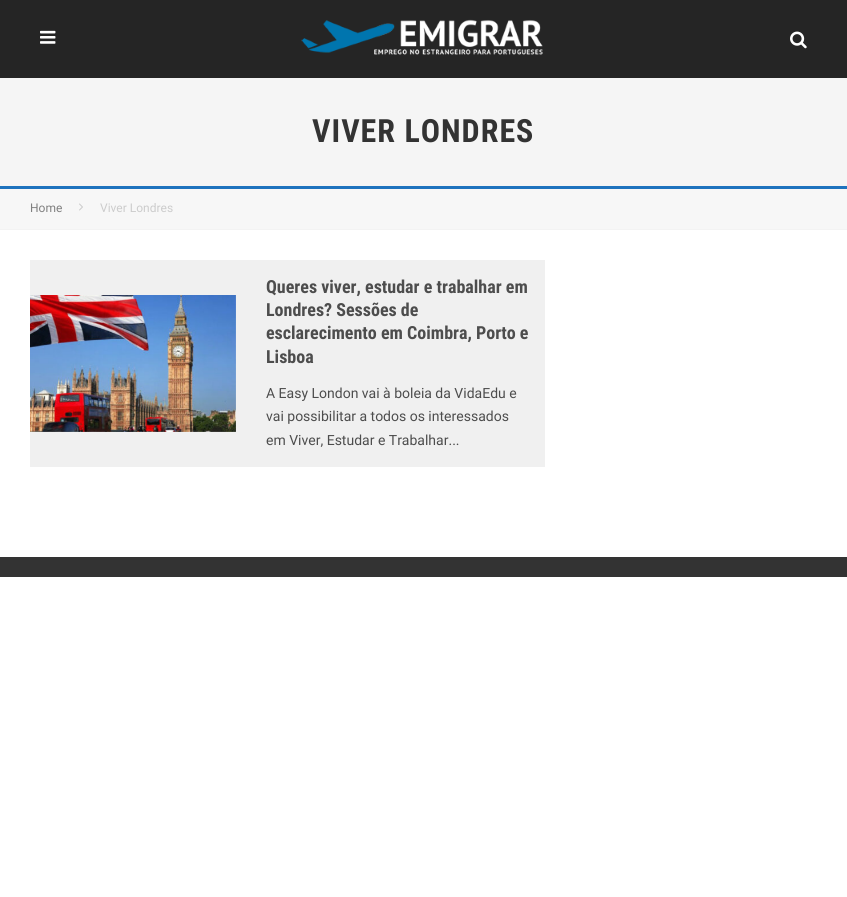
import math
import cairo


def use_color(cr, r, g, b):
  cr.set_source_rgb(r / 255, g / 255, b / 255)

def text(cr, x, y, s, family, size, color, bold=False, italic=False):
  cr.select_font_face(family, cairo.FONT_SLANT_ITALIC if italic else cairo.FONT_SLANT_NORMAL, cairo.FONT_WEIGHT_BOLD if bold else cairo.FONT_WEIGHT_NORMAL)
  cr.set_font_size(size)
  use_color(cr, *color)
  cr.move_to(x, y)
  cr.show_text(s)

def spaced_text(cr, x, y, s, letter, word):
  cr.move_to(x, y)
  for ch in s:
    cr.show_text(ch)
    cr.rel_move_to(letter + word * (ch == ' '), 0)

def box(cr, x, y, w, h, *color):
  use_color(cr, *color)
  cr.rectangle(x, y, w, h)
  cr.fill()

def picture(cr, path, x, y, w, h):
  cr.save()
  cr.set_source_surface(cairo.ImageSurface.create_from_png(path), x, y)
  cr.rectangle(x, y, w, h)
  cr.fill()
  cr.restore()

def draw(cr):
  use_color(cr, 255, 255, 255)
  cr.paint()
  box(cr, 0, 0, 847, 78, 37, 37, 37)
  picture(cr, "img_01.png", 40, 30, 16, 14)
  picture(cr, "img_02.png", 301, 19, 242, 36)
  picture(cr, "img_03.png", 790, 31, 17, 18)
  box(cr, 0, 78, 847, 108, 245, 245, 245)
  box(cr, 0, 186, 847, 3, 30, 115, 190)
  box(cr, 0, 189, 847, 40, 247, 247, 247)
  box(cr, 0, 229, 847, 1, 243, 243, 243)
  picture(cr, "img_04.png", 79, 203, 4, 8)
  box(cr, 30, 260, 515, 207, 240, 240, 240)
  picture(cr, "img_05.png", 30, 295, 206, 137)
  box(cr, 0, 557, 847, 20, 51, 51, 51)
  cr.select_font_face("Roboto Condensed", cairo.FONT_SLANT_NORMAL, cairo.FONT_WEIGHT_BOLD)
  cr.set_font_size(32)
  spaced_text(cr, 312, 142, "VIVER LONDRES", 1, 0)
  text(cr, 30, 212, "Home", "Roboto", 12, (128, 128, 128))
  text(cr, 100, 212, "Viver Londres", "Roboto", 12, (204, 204, 204))
  text(cr, 266, 293, "Queres viver, estudar e trabalhar em", "Roboto Condensed", 18, (77, 77, 77), bold=True)
  text(cr, 266, 316, "Londres? Sessões de", "Roboto Condensed", 18, (77, 77, 77), bold=True)
  text(cr, 266, 339, "esclarecimento em Coimbra, Porto e", "Roboto Condensed", 18, (77, 77, 77), bold=True)
  text(cr, 266, 363, "Lisboa", "Roboto Condensed", 18, (77, 77, 77), bold=True)
  text(cr, 266, 398, "A Easy London vai à boleia da VidaEdu e", "Roboto", 14, (77, 77, 77))
  text(cr, 266, 421, "vai possibilitar a todos os interessados", "Roboto", 14, (77, 77, 77))
  text(cr, 266, 445, "em Viver, Estudar e Trabalhar...", "Roboto", 14, (77, 77, 77))


surface = cairo.ImageSurface(cairo.FORMAT_RGB24, 847, 897)
cr = cairo.Context(surface)
options = cairo.FontOptions()
options.set_hint_metrics(cairo.HINT_METRICS_OFF)
options.set_hint_style(cairo.HINT_STYLE_NONE)
cr.set_font_options(options)
cr.set_miter_limit(4)
draw(cr)
surface.write_to_png("out.png")
